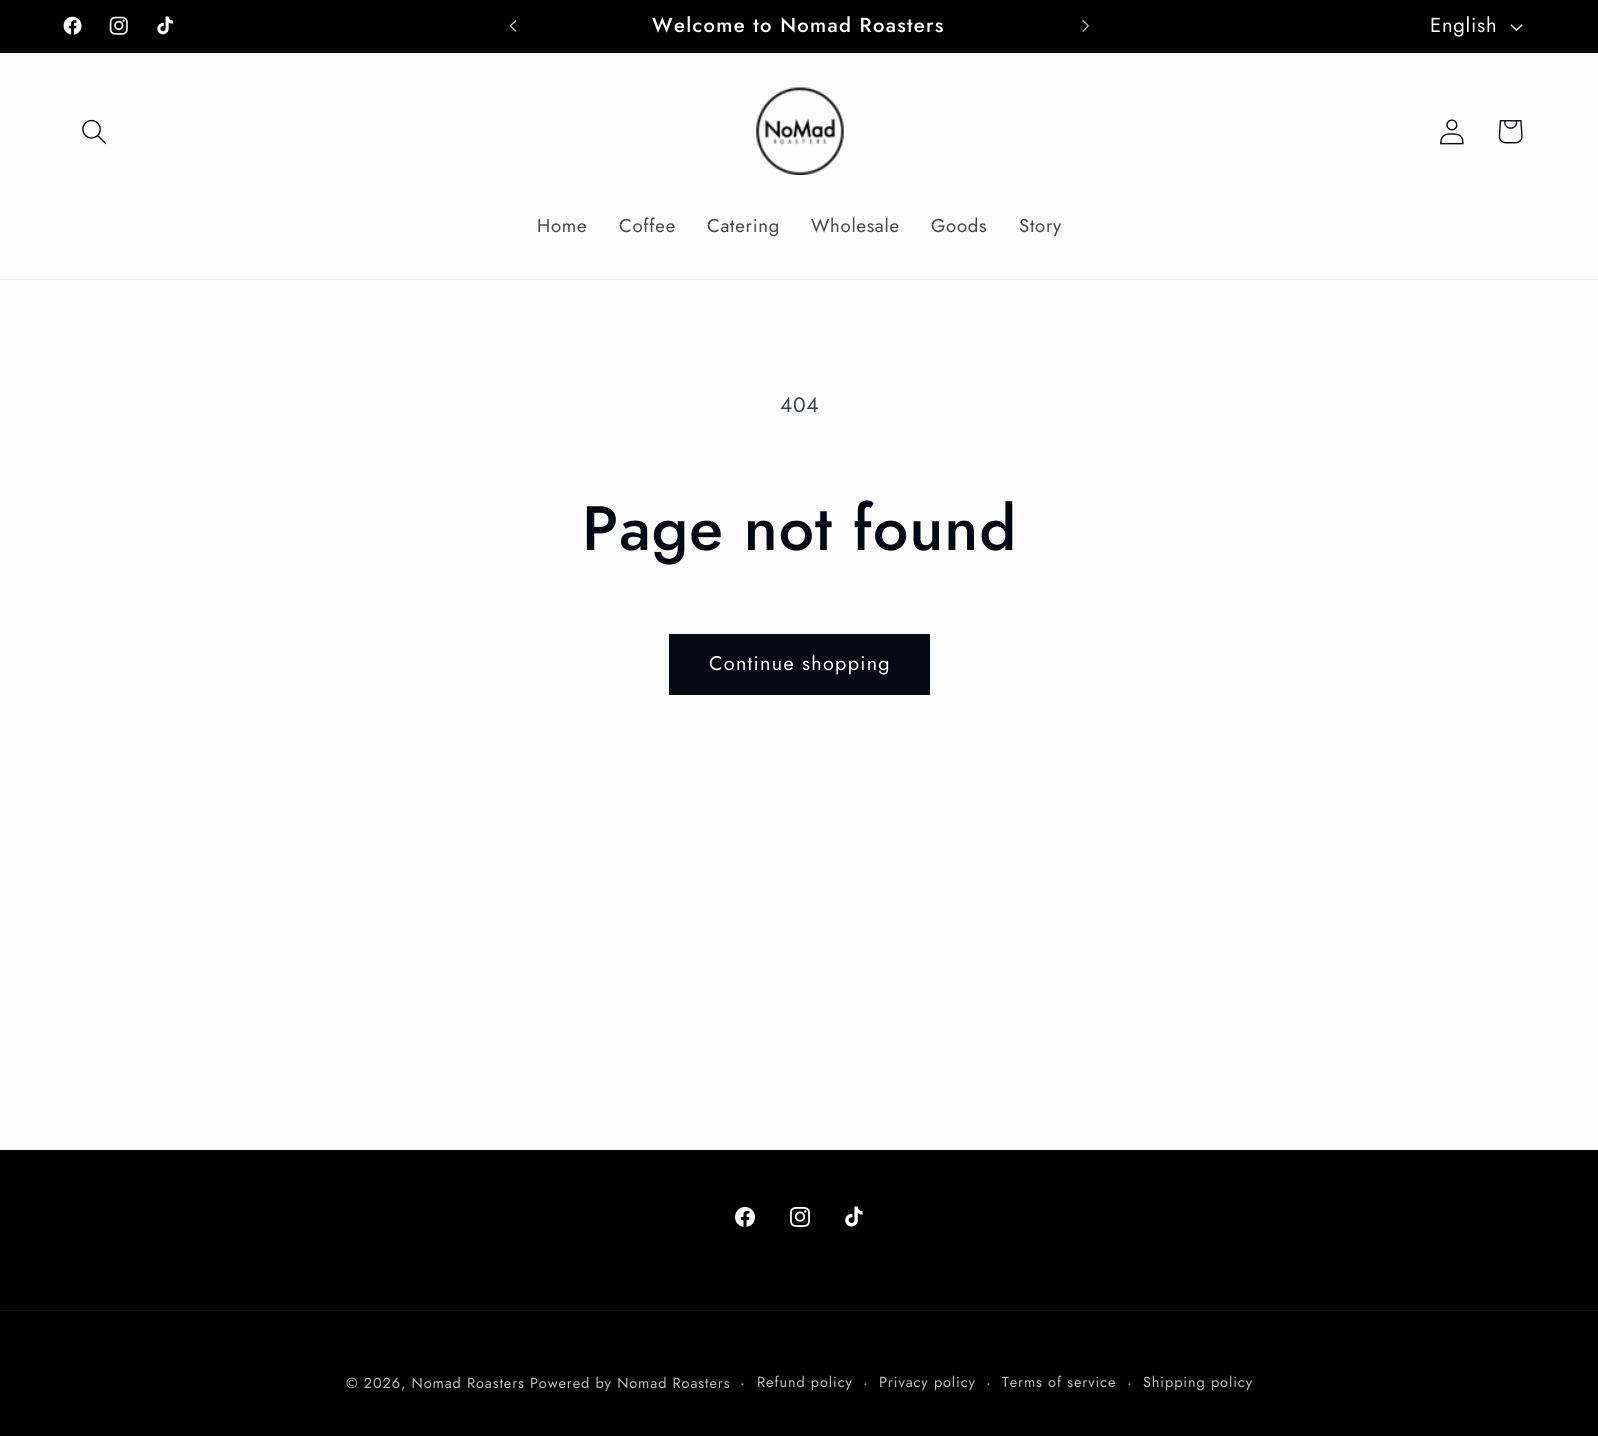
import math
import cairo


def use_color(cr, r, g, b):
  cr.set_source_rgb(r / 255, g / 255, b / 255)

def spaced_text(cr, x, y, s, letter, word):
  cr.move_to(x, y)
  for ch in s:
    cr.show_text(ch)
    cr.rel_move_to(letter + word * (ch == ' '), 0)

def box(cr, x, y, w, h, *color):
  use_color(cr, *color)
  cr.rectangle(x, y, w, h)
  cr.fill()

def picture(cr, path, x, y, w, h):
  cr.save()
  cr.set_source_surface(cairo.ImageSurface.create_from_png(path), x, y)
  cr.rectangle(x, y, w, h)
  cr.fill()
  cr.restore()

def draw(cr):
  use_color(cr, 252, 252, 252)
  cr.paint()
  box(cr, 0, 0, 1598, 53, 0, 0, 0)
  box(cr, 0, 51, 1598, 1, 20, 20, 20)
  picture(cr, "img_01.png", 63, 16, 19, 19)
  picture(cr, "img_02.png", 109, 16, 19, 19)
  picture(cr, "img_03.png", 157, 16, 16, 19)
  picture(cr, "img_04.png", 510, 20, 7, 12)
  picture(cr, "img_05.png", 1082, 20, 7, 12)
  picture(cr, "img_06.png", 1510, 24, 13, 7)
  box(cr, 0, 279, 1598, 1, 232, 233, 233)
  picture(cr, "img_07.png", 82, 119, 25, 26)
  picture(cr, "img_08.png", 756, 87, 88, 88)
  picture(cr, "img_09.png", 1440, 119, 24, 26)
  picture(cr, "img_10.png", 1498, 120, 25, 24)
  box(cr, 669, 634, 261, 61, 2, 9, 18)
  box(cr, 0, 1150, 1598, 286, 0, 0, 0)
  picture(cr, "img_11.png", 735, 1206, 20, 21)
  picture(cr, "img_12.png", 790, 1206, 20, 21)
  picture(cr, "img_13.png", 845, 1206, 18, 21)
  box(cr, 0, 1310, 1598, 1, 20, 20, 20)
  cr.select_font_face("Jost Medium")
  cr.set_font_size(20.25)
  use_color(cr, 255, 255, 255)
  spaced_text(cr, 652, 32, "Welcome to Nomad Roasters", 1.3, 0)
  cr.select_font_face("Jost")
  spaced_text(cr, 1430, 32, "English", 0.75, 0)
  cr.set_font_size(18.5)
  use_color(cr, 65, 70, 77)
  spaced_text(cr, 537, 232, "Home", 0.75, 0)
  spaced_text(cr, 619, 232, "Coffee", 0.75, 0)
  spaced_text(cr, 707, 232, "Catering", 0.75, 0)
  spaced_text(cr, 811, 232, "Wholesale", 0.75, 0)
  spaced_text(cr, 931, 232, "Goods", 0.75, 0)
  spaced_text(cr, 1019, 232, "Story", 0.75, 0)
  cr.set_font_size(21)
  spaced_text(cr, 780, 412, "404", 0.75, 0)
  cr.select_font_face("Jost Medium")
  cr.set_font_size(62.5)
  use_color(cr, 2, 9, 18)
  spaced_text(cr, 582, 550, "Page not found", 1, 0)
  cr.select_font_face("Jost")
  cr.set_font_size(19.75)
  use_color(cr, 255, 255, 255)
  spaced_text(cr, 709, 670, "Continue shopping", 1.3, 0)
  cr.set_font_size(14.5)
  use_color(cr, 191, 191, 191)
  spaced_text(cr, 346, 1388, "© 2026, Nomad Roasters", 0.9, 0)
  spaced_text(cr, 530, 1388, "Powered by Nomad Roasters", 0.9, 0)
  cr.set_font_size(16)
  spaced_text(cr, 740, 1388, "·", 0.9, 0)
  cr.set_font_size(14.5)
  spaced_text(cr, 757, 1387, "Refund policy", 0.9, 0)
  cr.set_font_size(16)
  spaced_text(cr, 863, 1388, "·", 0.9, 0)
  cr.set_font_size(14.5)
  spaced_text(cr, 879, 1387, "Privacy policy", 0.9, 0)
  cr.set_font_size(16)
  spaced_text(cr, 986, 1388, "·", 0.9, 0)
  cr.set_font_size(14.5)
  spaced_text(cr, 1002, 1387, "Terms of service", 0.9, 0)
  cr.set_font_size(16)
  spaced_text(cr, 1127, 1388, "·", 0.9, 0)
  cr.set_font_size(14.5)
  spaced_text(cr, 1143, 1387, "Shipping policy", 0.9, 0)


surface = cairo.ImageSurface(cairo.FORMAT_RGB24, 1598, 1436)
cr = cairo.Context(surface)
options = cairo.FontOptions()
options.set_hint_metrics(cairo.HINT_METRICS_OFF)
options.set_hint_style(cairo.HINT_STYLE_NONE)
cr.set_font_options(options)
cr.set_miter_limit(4)
draw(cr)
surface.write_to_png("out.png")
